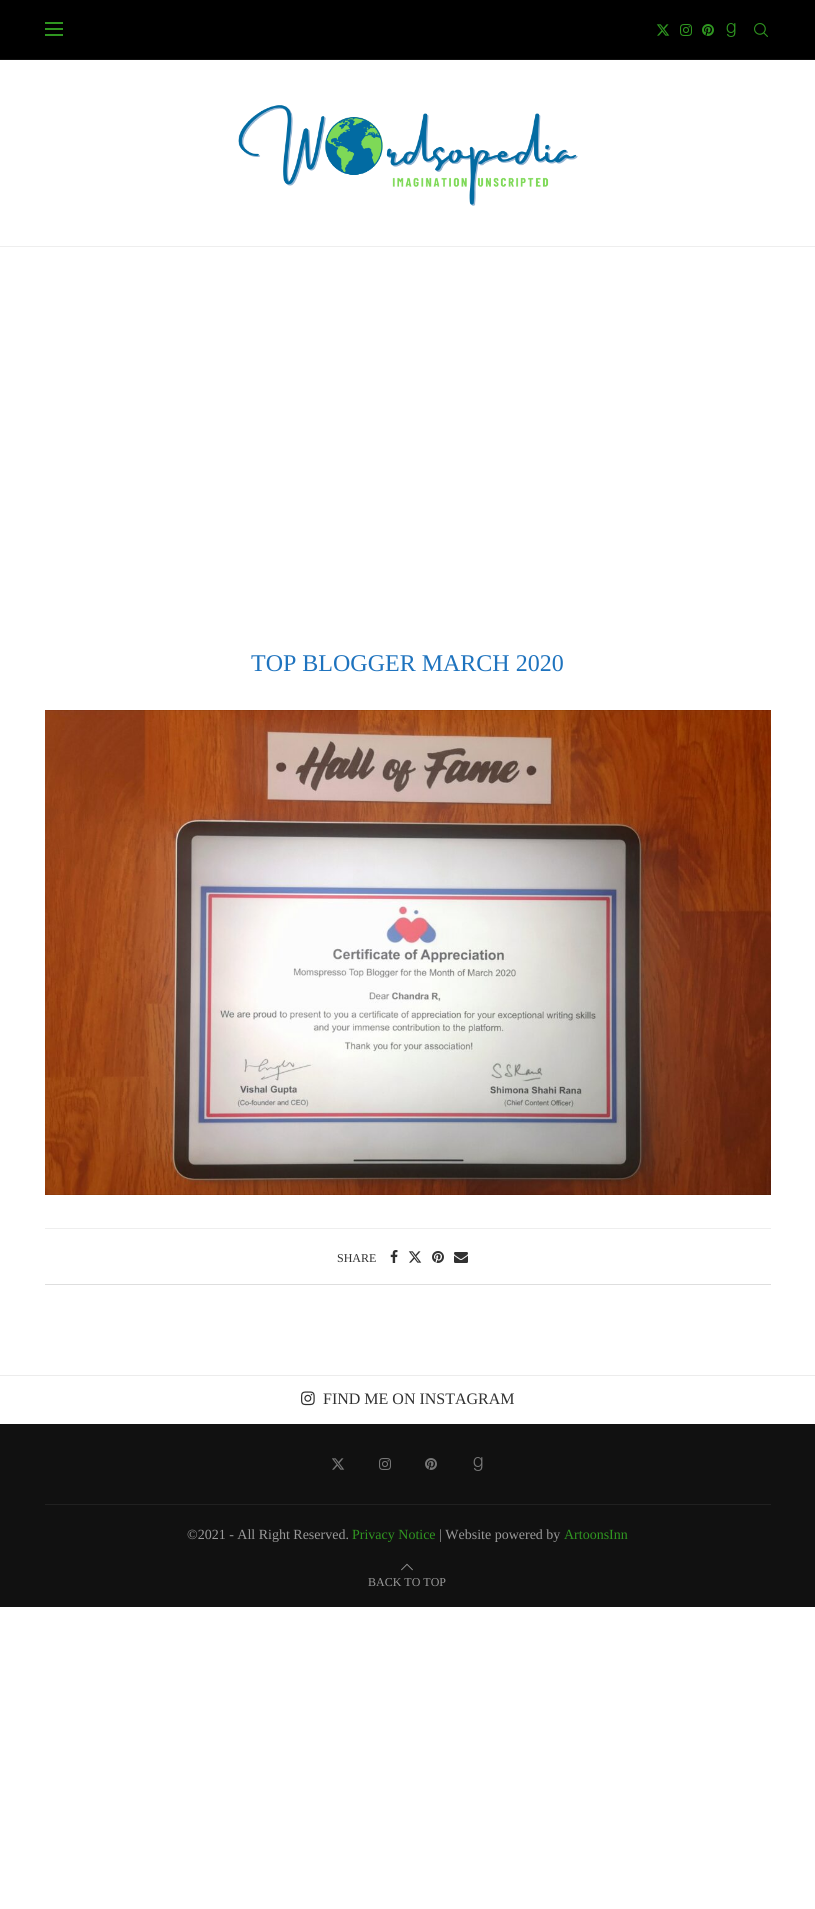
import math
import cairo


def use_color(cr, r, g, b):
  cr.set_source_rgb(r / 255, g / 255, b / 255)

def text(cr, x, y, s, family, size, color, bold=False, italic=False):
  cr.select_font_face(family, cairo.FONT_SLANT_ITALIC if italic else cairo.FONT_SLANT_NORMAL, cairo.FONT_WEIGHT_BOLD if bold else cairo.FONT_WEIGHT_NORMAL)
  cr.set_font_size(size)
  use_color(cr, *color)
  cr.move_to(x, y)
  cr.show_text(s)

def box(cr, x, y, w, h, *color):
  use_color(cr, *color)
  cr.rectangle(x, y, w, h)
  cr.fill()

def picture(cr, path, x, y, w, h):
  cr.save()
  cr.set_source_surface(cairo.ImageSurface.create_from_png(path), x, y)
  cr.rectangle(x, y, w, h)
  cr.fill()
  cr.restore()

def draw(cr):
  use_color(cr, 255, 255, 255)
  cr.paint()
  box(cr, 0, 0, 815, 59, 0, 0, 0)
  box(cr, 0, 59, 815, 1, 17, 17, 17)
  box(cr, 45, 22, 18, 2, 47, 150, 32)
  box(cr, 45, 28, 18, 2, 47, 150, 32)
  box(cr, 45, 34, 18, 2, 47, 150, 32)
  picture(cr, "img_01.png", 656, 24, 14, 12)
  picture(cr, "img_02.png", 680, 24, 12, 12)
  picture(cr, "img_03.png", 702, 24, 12, 12)
  picture(cr, "img_04.png", 726, 23, 10, 14)
  picture(cr, "img_05.png", 754, 23, 14, 14)
  box(cr, 0, 246, 815, 1, 238, 238, 238)
  picture(cr, "img_06.png", 238, 105, 340, 101)
  picture(cr, "img_07.png", 45, 710, 726, 485)
  box(cr, 45, 1284, 726, 1, 222, 222, 222)
  box(cr, 45, 1228, 726, 1, 238, 238, 238)
  picture(cr, "img_08.png", 390, 1250, 8, 13)
  picture(cr, "img_09.png", 408, 1251, 14, 12)
  picture(cr, "img_10.png", 432, 1251, 12, 12)
  picture(cr, "img_11.png", 454, 1252, 14, 11)
  box(cr, 0, 1375, 815, 1, 236, 236, 236)
  picture(cr, "img_12.png", 301, 1391, 14, 15)
  box(cr, 0, 1424, 815, 183, 17, 17, 17)
  box(cr, 45, 1504, 726, 1, 33, 33, 33)
  picture(cr, "img_13.png", 332, 1458, 13, 12)
  picture(cr, "img_14.png", 379, 1458, 12, 12)
  picture(cr, "img_15.png", 425, 1458, 12, 12)
  picture(cr, "img_16.png", 473, 1457, 10, 14)
  picture(cr, "img_17.png", 401, 1563, 12, 8)
  text(cr, 251, 671, "TOP BLOGGER MARCH 2020", "Liberation Serif", 24, (30, 115, 190))
  text(cr, 337, 1262, "SHARE", "Liberation Serif", 12, (49, 49, 49))
  text(cr, 323, 1404, "FIND ME ON INSTAGRAM", "Liberation Serif", 16, (49, 49, 49))
  text(cr, 187, 1539, "©2021 - All Right Reserved.", "Liberation Serif", 14, (153, 153, 153))
  text(cr, 352, 1539, "Privacy Notice", "Liberation Serif", 14, (47, 150, 32))
  text(cr, 439, 1539, "| Website powered by", "Liberation Serif", 14, (153, 153, 153))
  text(cr, 564, 1539, "ArtoonsInn", "Liberation Serif", 14, (47, 150, 32))
  text(cr, 368, 1586, "BACK TO TOP", "Liberation Serif", 12, (153, 153, 153))


surface = cairo.ImageSurface(cairo.FORMAT_RGB24, 815, 1909)
cr = cairo.Context(surface)
options = cairo.FontOptions()
options.set_hint_metrics(cairo.HINT_METRICS_OFF)
options.set_hint_style(cairo.HINT_STYLE_NONE)
cr.set_font_options(options)
cr.set_miter_limit(4)
draw(cr)
surface.write_to_png("out.png")
